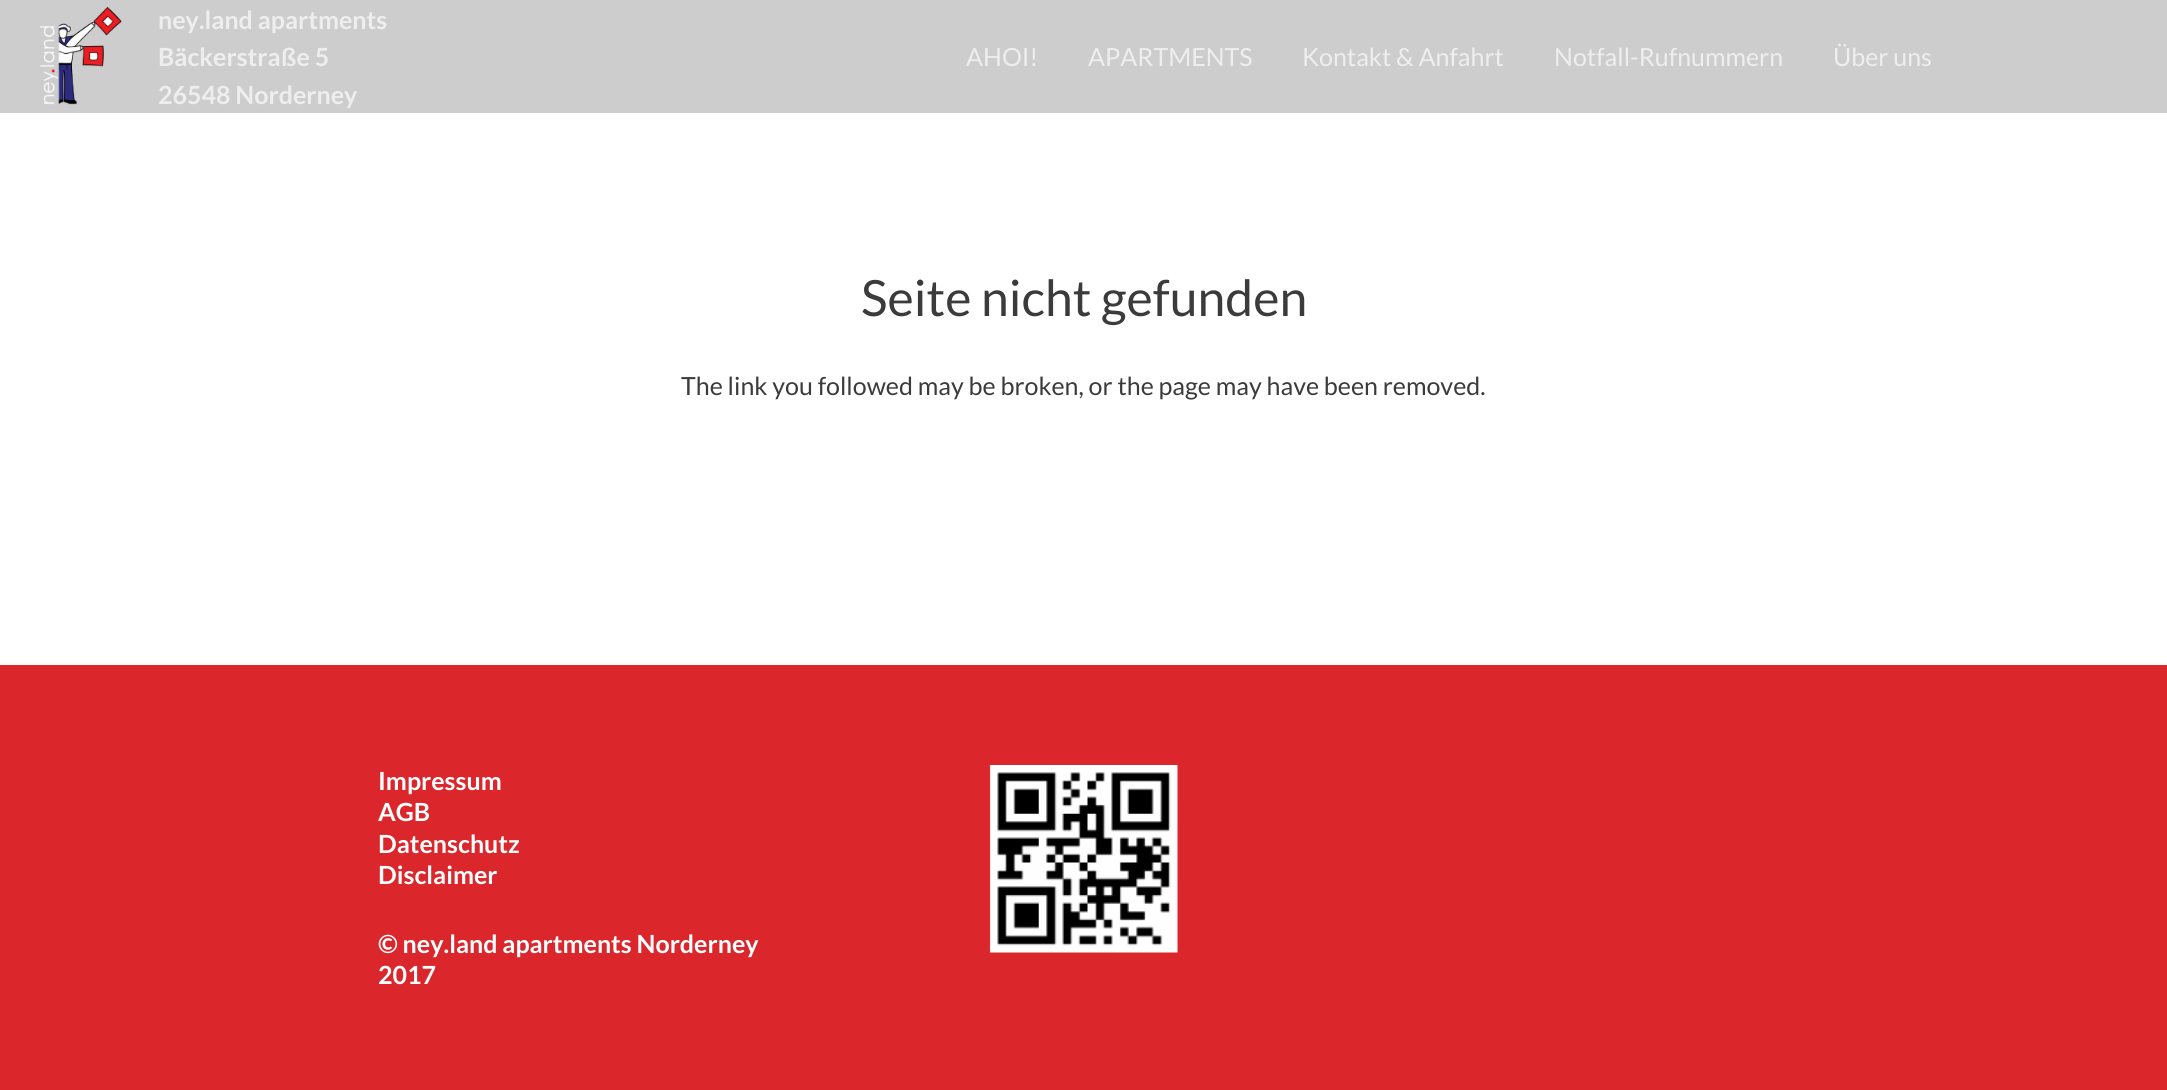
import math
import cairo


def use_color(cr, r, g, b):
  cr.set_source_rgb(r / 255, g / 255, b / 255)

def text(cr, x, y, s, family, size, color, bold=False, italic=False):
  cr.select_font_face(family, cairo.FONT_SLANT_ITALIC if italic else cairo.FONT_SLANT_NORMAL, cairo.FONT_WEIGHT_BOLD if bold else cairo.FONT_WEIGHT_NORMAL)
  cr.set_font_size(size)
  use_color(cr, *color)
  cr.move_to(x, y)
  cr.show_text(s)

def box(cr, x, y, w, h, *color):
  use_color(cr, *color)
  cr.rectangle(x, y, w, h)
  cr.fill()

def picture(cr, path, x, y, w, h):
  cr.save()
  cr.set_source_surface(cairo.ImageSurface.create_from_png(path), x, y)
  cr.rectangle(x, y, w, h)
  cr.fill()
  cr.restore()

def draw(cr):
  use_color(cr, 255, 255, 255)
  cr.paint()
  box(cr, 0, 0, 2167, 113, 205, 205, 205)
  picture(cr, "img_01.png", 40, 6, 82, 99)
  box(cr, 0, 665, 2167, 425, 219, 38, 44)
  picture(cr, "img_02.png", 989, 765, 189, 188)
  text(cr, 158, 29, "ney.land apartments", "Lato", 25, (238, 238, 238), bold=True)
  text(cr, 158, 66, "Bäckerstraße 5", "Lato", 25, (238, 238, 238), bold=True)
  text(cr, 158, 104, "26548 Norderney", "Lato", 25, (238, 238, 238), bold=True)
  text(cr, 966, 66, "AHOI!", "Lato", 25, (238, 238, 238))
  text(cr, 1088, 66, "APARTMENTS", "Lato", 25, (238, 238, 238))
  text(cr, 1302, 66, "Kontakt & Anfahrt", "Lato", 25, (238, 238, 238))
  text(cr, 1554, 66, "Notfall-Rufnummern", "Lato", 25, (238, 238, 238))
  text(cr, 1833, 66, "Über uns", "Lato", 25, (238, 238, 238))
  text(cr, 861, 316, "Seite nicht gefunden", "Lato", 50, (59, 59, 59))
  text(cr, 681, 395, "The link you followed may be broken, or the page may have been removed.", "Lato", 25, (59, 59, 59))
  text(cr, 378, 790, "Impressum", "Lato", 25, (255, 255, 255), bold=True)
  text(cr, 378, 821, "AGB", "Lato", 25, (255, 255, 255), bold=True)
  text(cr, 378, 853, "Datenschutz", "Lato", 25, (255, 255, 255), bold=True)
  text(cr, 378, 884, "Disclaimer", "Lato", 25, (255, 255, 255), bold=True)
  text(cr, 378, 953, "© ney.land apartments Norderney", "Lato", 25, (255, 255, 255), bold=True)
  text(cr, 378, 984, "2017", "Lato", 25, (255, 255, 255), bold=True)


surface = cairo.ImageSurface(cairo.FORMAT_RGB24, 2167, 1090)
cr = cairo.Context(surface)
options = cairo.FontOptions()
options.set_hint_metrics(cairo.HINT_METRICS_OFF)
options.set_hint_style(cairo.HINT_STYLE_NONE)
cr.set_font_options(options)
cr.set_miter_limit(4)
draw(cr)
surface.write_to_png("out.png")
